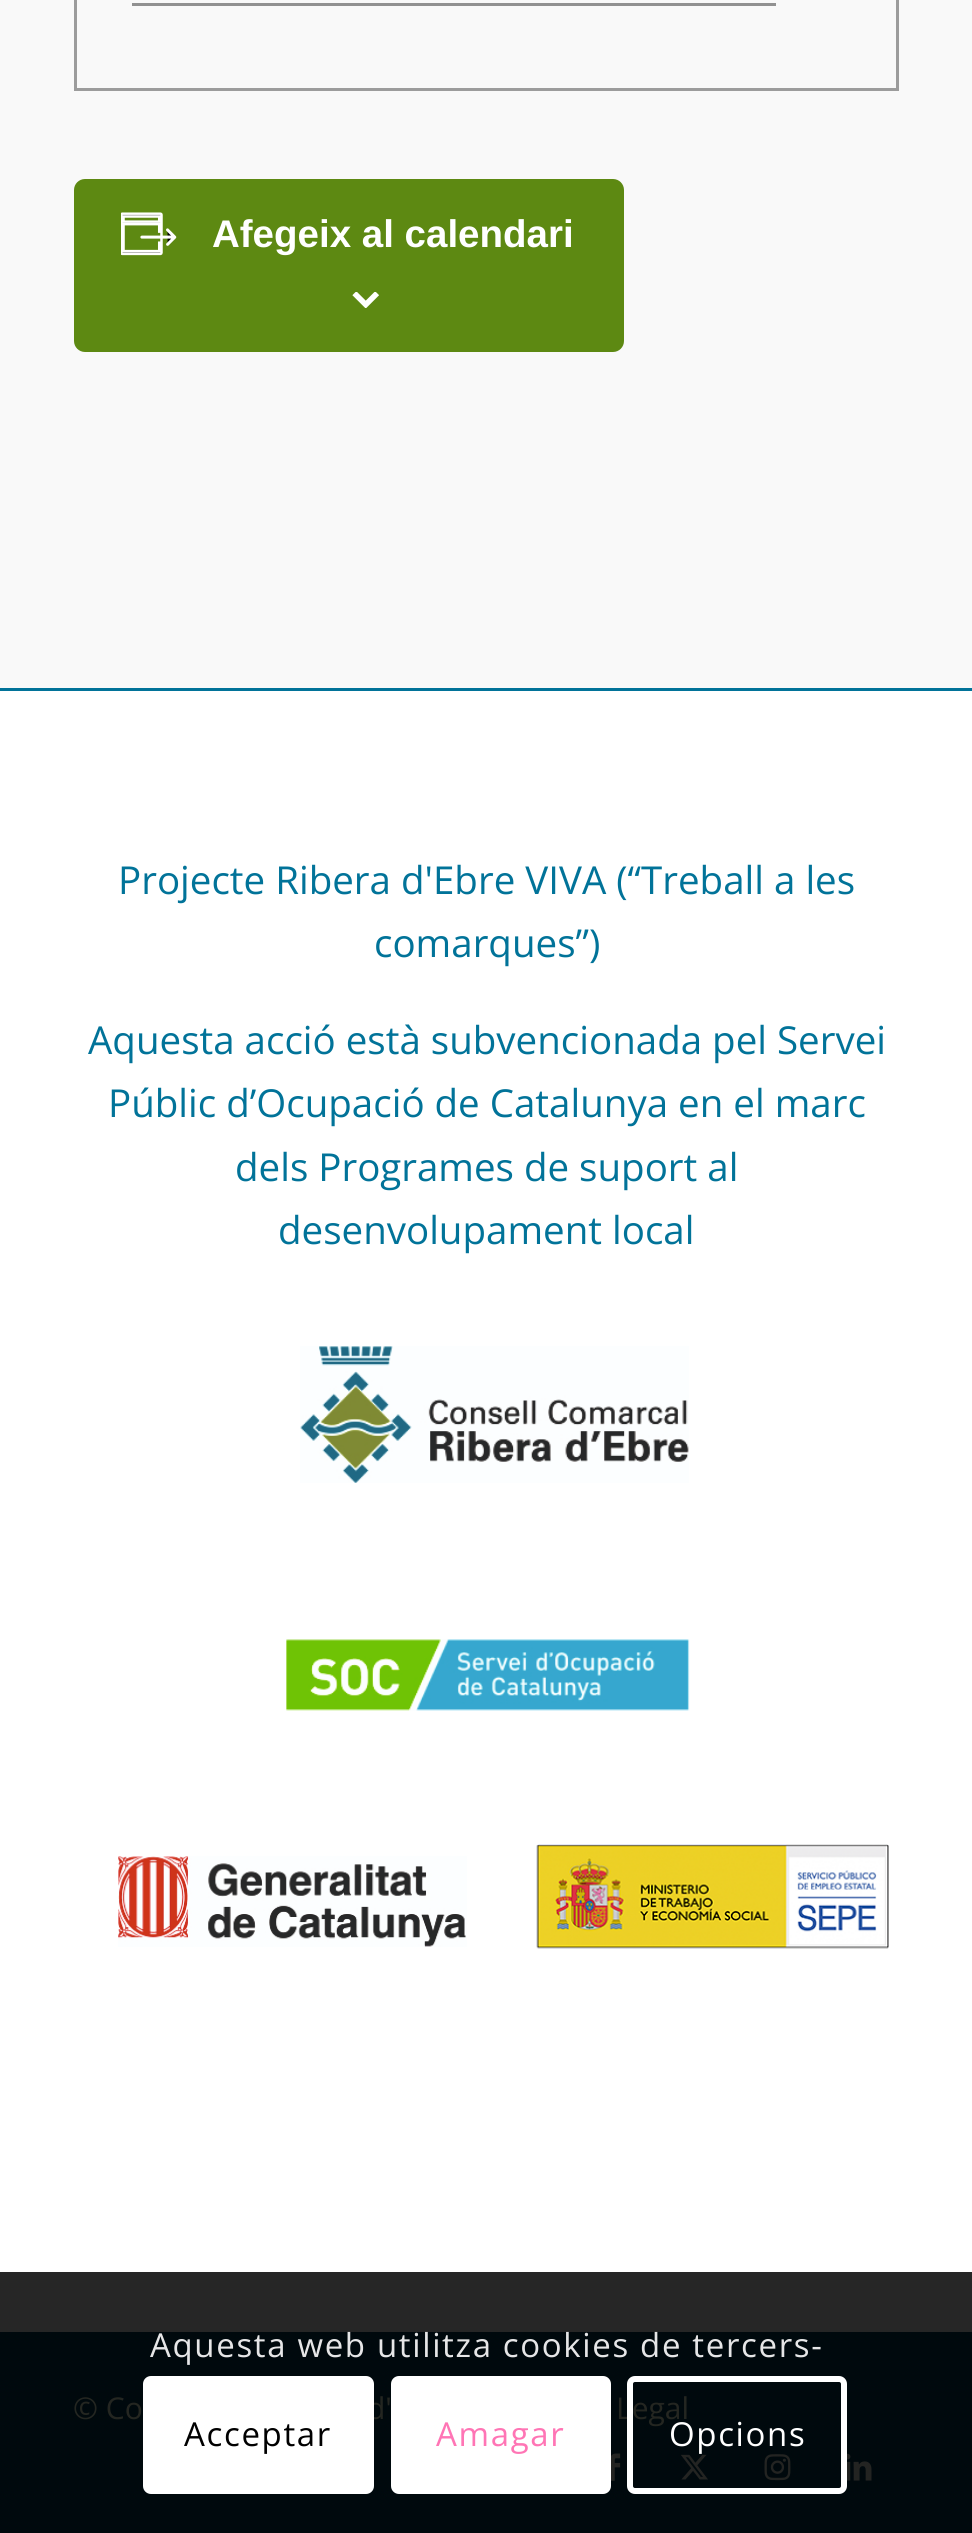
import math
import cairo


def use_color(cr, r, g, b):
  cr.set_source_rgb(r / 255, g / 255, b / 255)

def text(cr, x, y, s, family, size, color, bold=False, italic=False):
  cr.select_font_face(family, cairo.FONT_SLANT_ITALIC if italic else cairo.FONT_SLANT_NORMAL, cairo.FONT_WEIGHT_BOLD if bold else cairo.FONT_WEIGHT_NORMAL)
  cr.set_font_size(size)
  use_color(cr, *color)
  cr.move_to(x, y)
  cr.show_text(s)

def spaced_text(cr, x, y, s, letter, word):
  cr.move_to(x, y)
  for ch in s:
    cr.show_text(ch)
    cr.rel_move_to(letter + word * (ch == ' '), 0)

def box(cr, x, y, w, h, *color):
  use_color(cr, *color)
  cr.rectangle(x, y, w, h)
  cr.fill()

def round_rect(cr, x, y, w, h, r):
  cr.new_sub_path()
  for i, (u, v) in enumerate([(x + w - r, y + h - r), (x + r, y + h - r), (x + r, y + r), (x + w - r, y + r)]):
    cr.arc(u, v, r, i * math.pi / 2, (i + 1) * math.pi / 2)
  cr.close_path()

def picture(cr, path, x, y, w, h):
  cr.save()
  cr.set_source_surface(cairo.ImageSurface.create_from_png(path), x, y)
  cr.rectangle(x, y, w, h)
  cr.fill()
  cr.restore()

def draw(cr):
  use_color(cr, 255, 255, 255)
  cr.paint()
  box(cr, 0, 2272, 972, 60, 38, 38, 38)
  box(cr, 0, 0, 972, 688, 249, 249, 249)
  cr.rectangle(75.5, -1.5, 822, 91)
  use_color(cr, 156, 156, 156)
  cr.set_line_width(3)
  cr.stroke()
  box(cr, 132, 3, 644, 3, 145, 145, 145)
  use_color(cr, 93, 137, 18)
  round_rect(cr, 75.5, 180.5, 547, 170, 9.5)
  cr.fill_preserve()
  cr.stroke()
  picture(cr, "img_01.png", 121, 212, 56, 44)
  picture(cr, "img_02.png", 352, 292, 27, 16)
  box(cr, 0, 688, 972, 3, 1, 115, 153)
  picture(cr, "img_03.png", 300, 1346, 389, 137)
  picture(cr, "img_04.png", 286, 1639, 404, 72)
  picture(cr, "img_05.png", 118, 1856, 349, 91)
  picture(cr, "img_06.png", 536, 1844, 353, 105)
  box(cr, 0, 2332, 972, 201, 0, 9, 13)
  picture(cr, "img_07.png", 611, 2453, 10, 28)
  picture(cr, "img_08.png", 681, 2454, 27, 26)
  picture(cr, "img_09.png", 764, 2454, 27, 27)
  picture(cr, "img_10.png", 847, 2453, 25, 28)
  use_color(cr, 255, 255, 255)
  round_rect(cr, 394, 2379, 214, 112, 5)
  cr.fill_preserve()
  cr.set_line_width(6)
  cr.stroke()
  text(cr, 212, 247, "Afegeix al calendari", "Liberation Sans", 38.5, (255, 255, 255), bold=True)
  text(cr, 118, 894, "Projecte Ribera d'Ebre VIVA (“Treball a les", "Open Sans", 38.5, (1, 115, 153))
  text(cr, 374, 957, "comarques”)", "Open Sans", 38.5, (1, 115, 153))
  text(cr, 88, 1054, "Aquesta acció està subvencionada pel Servei", "Open Sans", 38.5, (1, 115, 153))
  text(cr, 108, 1117, "Públic d’Ocupació de Catalunya en el marc", "Open Sans", 38.5, (1, 115, 153))
  text(cr, 235, 1181, "dels Programes de suport al", "Open Sans", 38.5, (1, 115, 153))
  text(cr, 278, 1244, "desenvolupament local", "Open Sans", 38.5, (1, 115, 153))
  text(cr, 73, 2419, "© Co", "Open Sans", 30, (36, 38, 33))
  text(cr, 367, 2419, "d'", "Open Sans", 30, (36, 38, 33))
  text(cr, 616, 2419, "Legal", "Open Sans", 30, (36, 38, 33))
  cr.set_font_size(33)
  use_color(cr, 230, 230, 231)
  spaced_text(cr, 150, 2357, "Aquesta web utilitza cookies de tercers-", 1.65, 0)
  use_color(cr, 255, 255, 255)
  round_rect(cr, 143, 2376, 231, 118, 8)
  cr.fill()
  use_color(cr, 0, 0, 0)
  spaced_text(cr, 184, 2446, "Acceptar", 1.65, 0)
  use_color(cr, 255, 117, 181)
  spaced_text(cr, 436, 2446, "Amagar", 1.65, 0)
  round_rect(cr, 630, 2379, 214, 112, 5)
  use_color(cr, 255, 255, 255)
  cr.stroke()
  spaced_text(cr, 669, 2446, "Opcions", 1.65, 0)


surface = cairo.ImageSurface(cairo.FORMAT_RGB24, 972, 2533)
cr = cairo.Context(surface)
options = cairo.FontOptions()
options.set_hint_metrics(cairo.HINT_METRICS_OFF)
options.set_hint_style(cairo.HINT_STYLE_NONE)
cr.set_font_options(options)
cr.set_miter_limit(4)
draw(cr)
surface.write_to_png("out.png")
